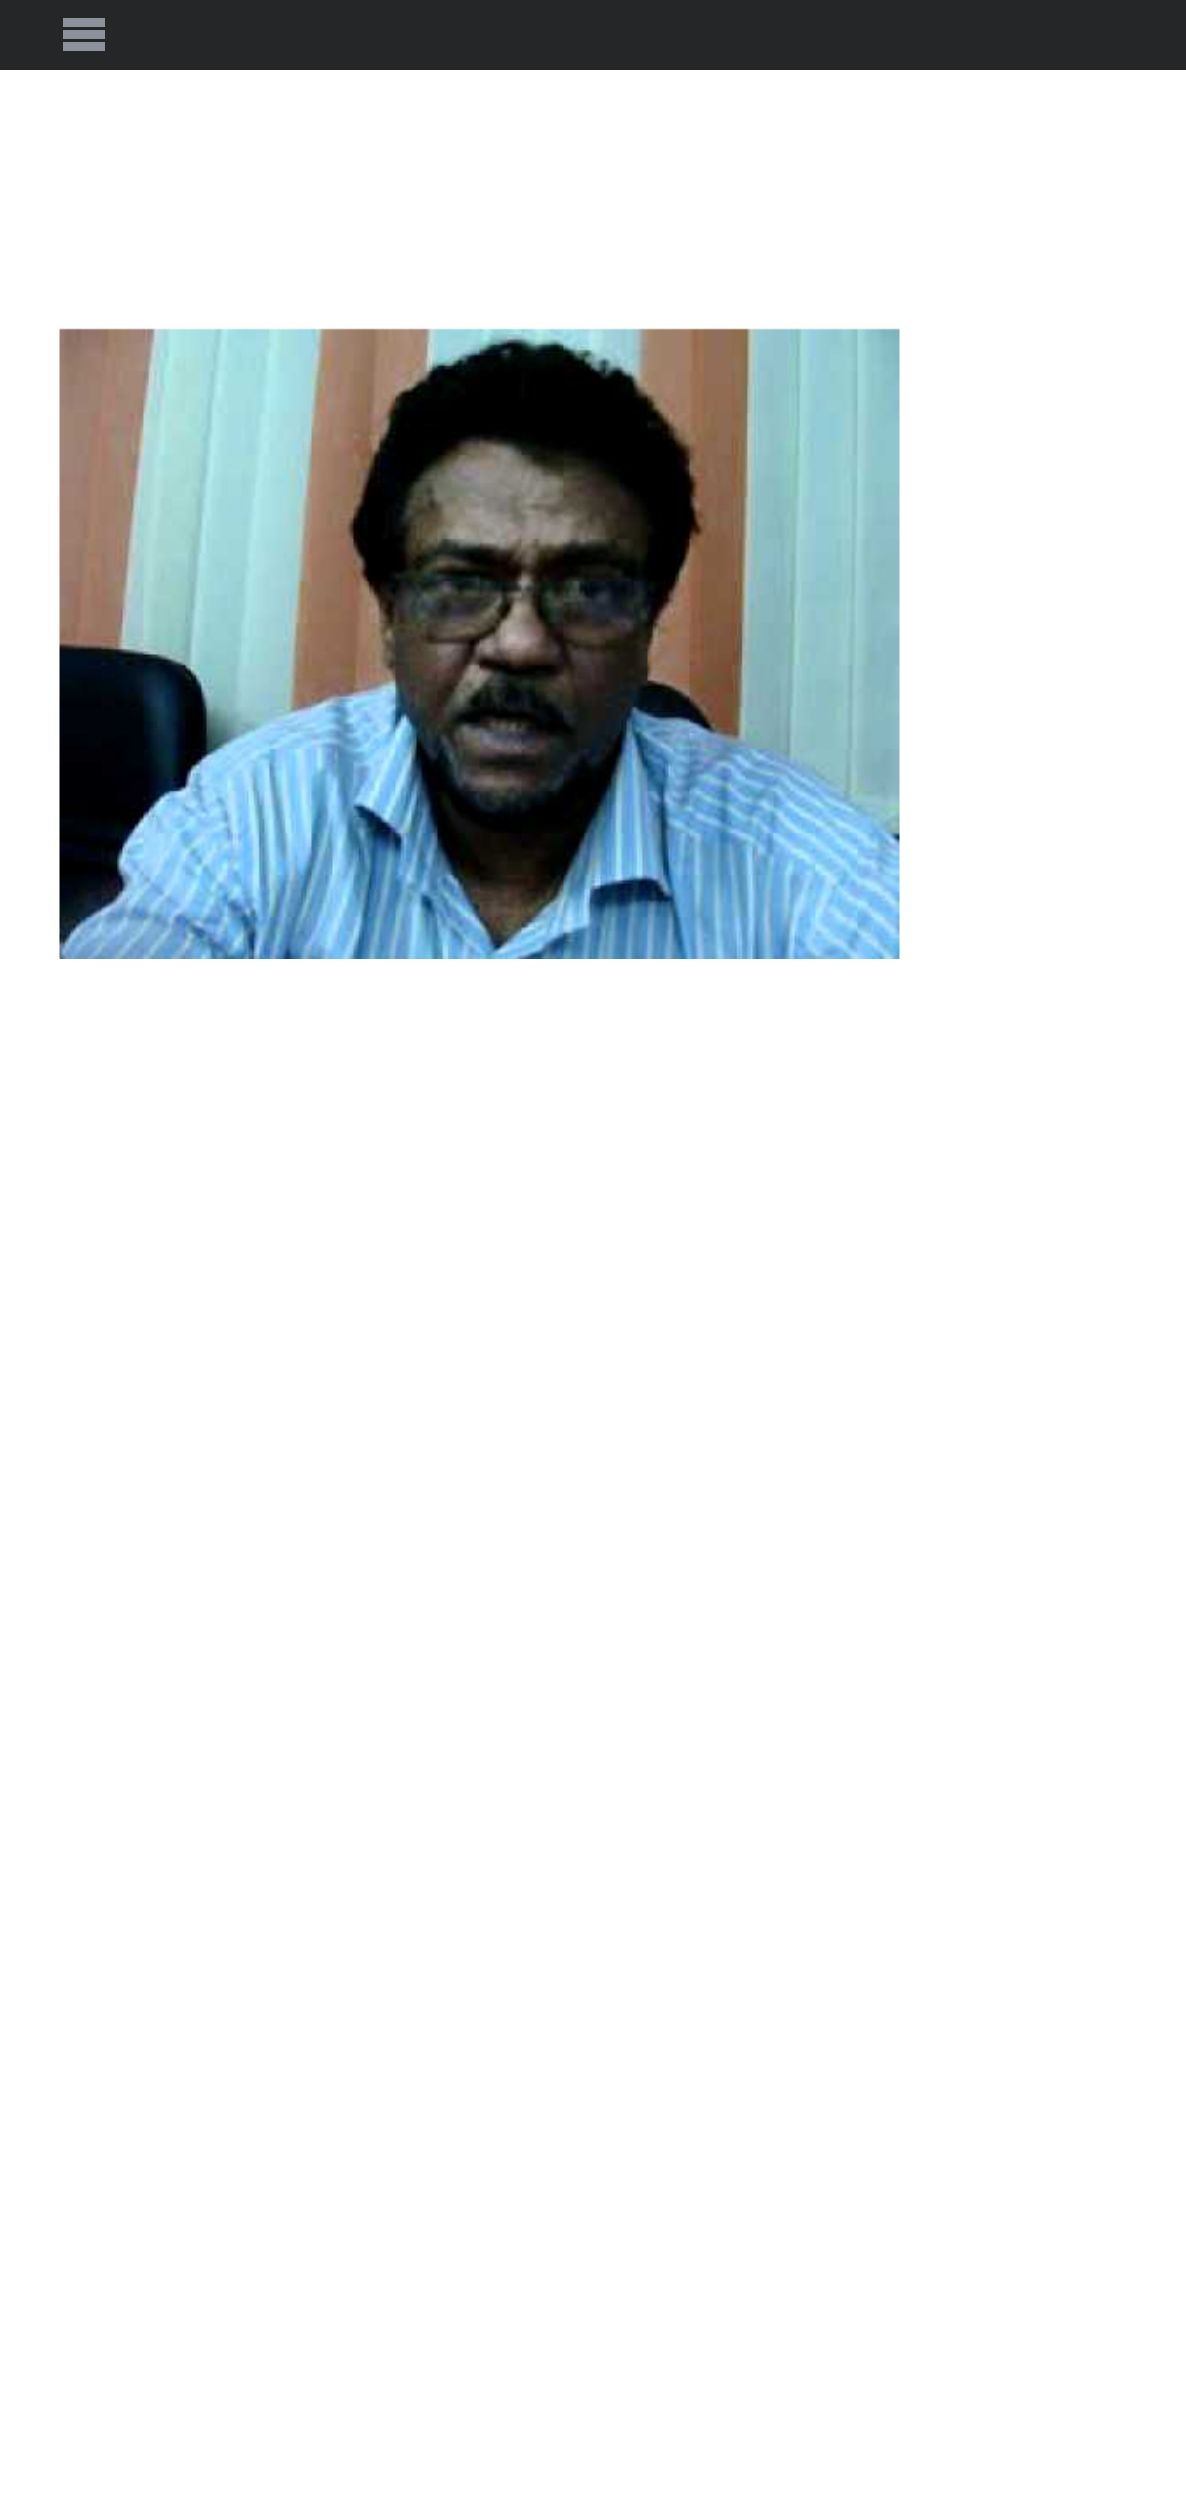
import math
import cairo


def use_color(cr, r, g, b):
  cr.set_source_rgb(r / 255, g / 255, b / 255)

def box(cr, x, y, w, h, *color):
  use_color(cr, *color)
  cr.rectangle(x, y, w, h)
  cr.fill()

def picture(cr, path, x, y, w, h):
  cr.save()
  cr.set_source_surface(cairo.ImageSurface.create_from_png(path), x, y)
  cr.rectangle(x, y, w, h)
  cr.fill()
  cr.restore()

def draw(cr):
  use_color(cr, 255, 255, 255)
  cr.paint()
  box(cr, 0, 0, 1186, 70, 36, 38, 40)
  use_color(cr, 140, 145, 155)
  cr.new_path()
  cr.move_to(63, 18)
  cr.line_to(105, 18)
  cr.line_to(105, 27)
  cr.line_to(63, 27)
  cr.close_path()
  cr.move_to(63, 30)
  cr.line_to(105, 30)
  cr.line_to(105, 39)
  cr.line_to(63, 39)
  cr.close_path()
  cr.move_to(63, 42)
  cr.line_to(105, 42)
  cr.line_to(105, 51)
  cr.line_to(63, 51)
  cr.close_path()
  cr.fill()
  picture(cr, "img_01.png", 59, 328, 841, 631)


surface = cairo.ImageSurface(cairo.FORMAT_RGB24, 1186, 2498)
cr = cairo.Context(surface)
options = cairo.FontOptions()
options.set_hint_metrics(cairo.HINT_METRICS_OFF)
options.set_hint_style(cairo.HINT_STYLE_NONE)
cr.set_font_options(options)
cr.set_miter_limit(4)
draw(cr)
surface.write_to_png("out.png")
